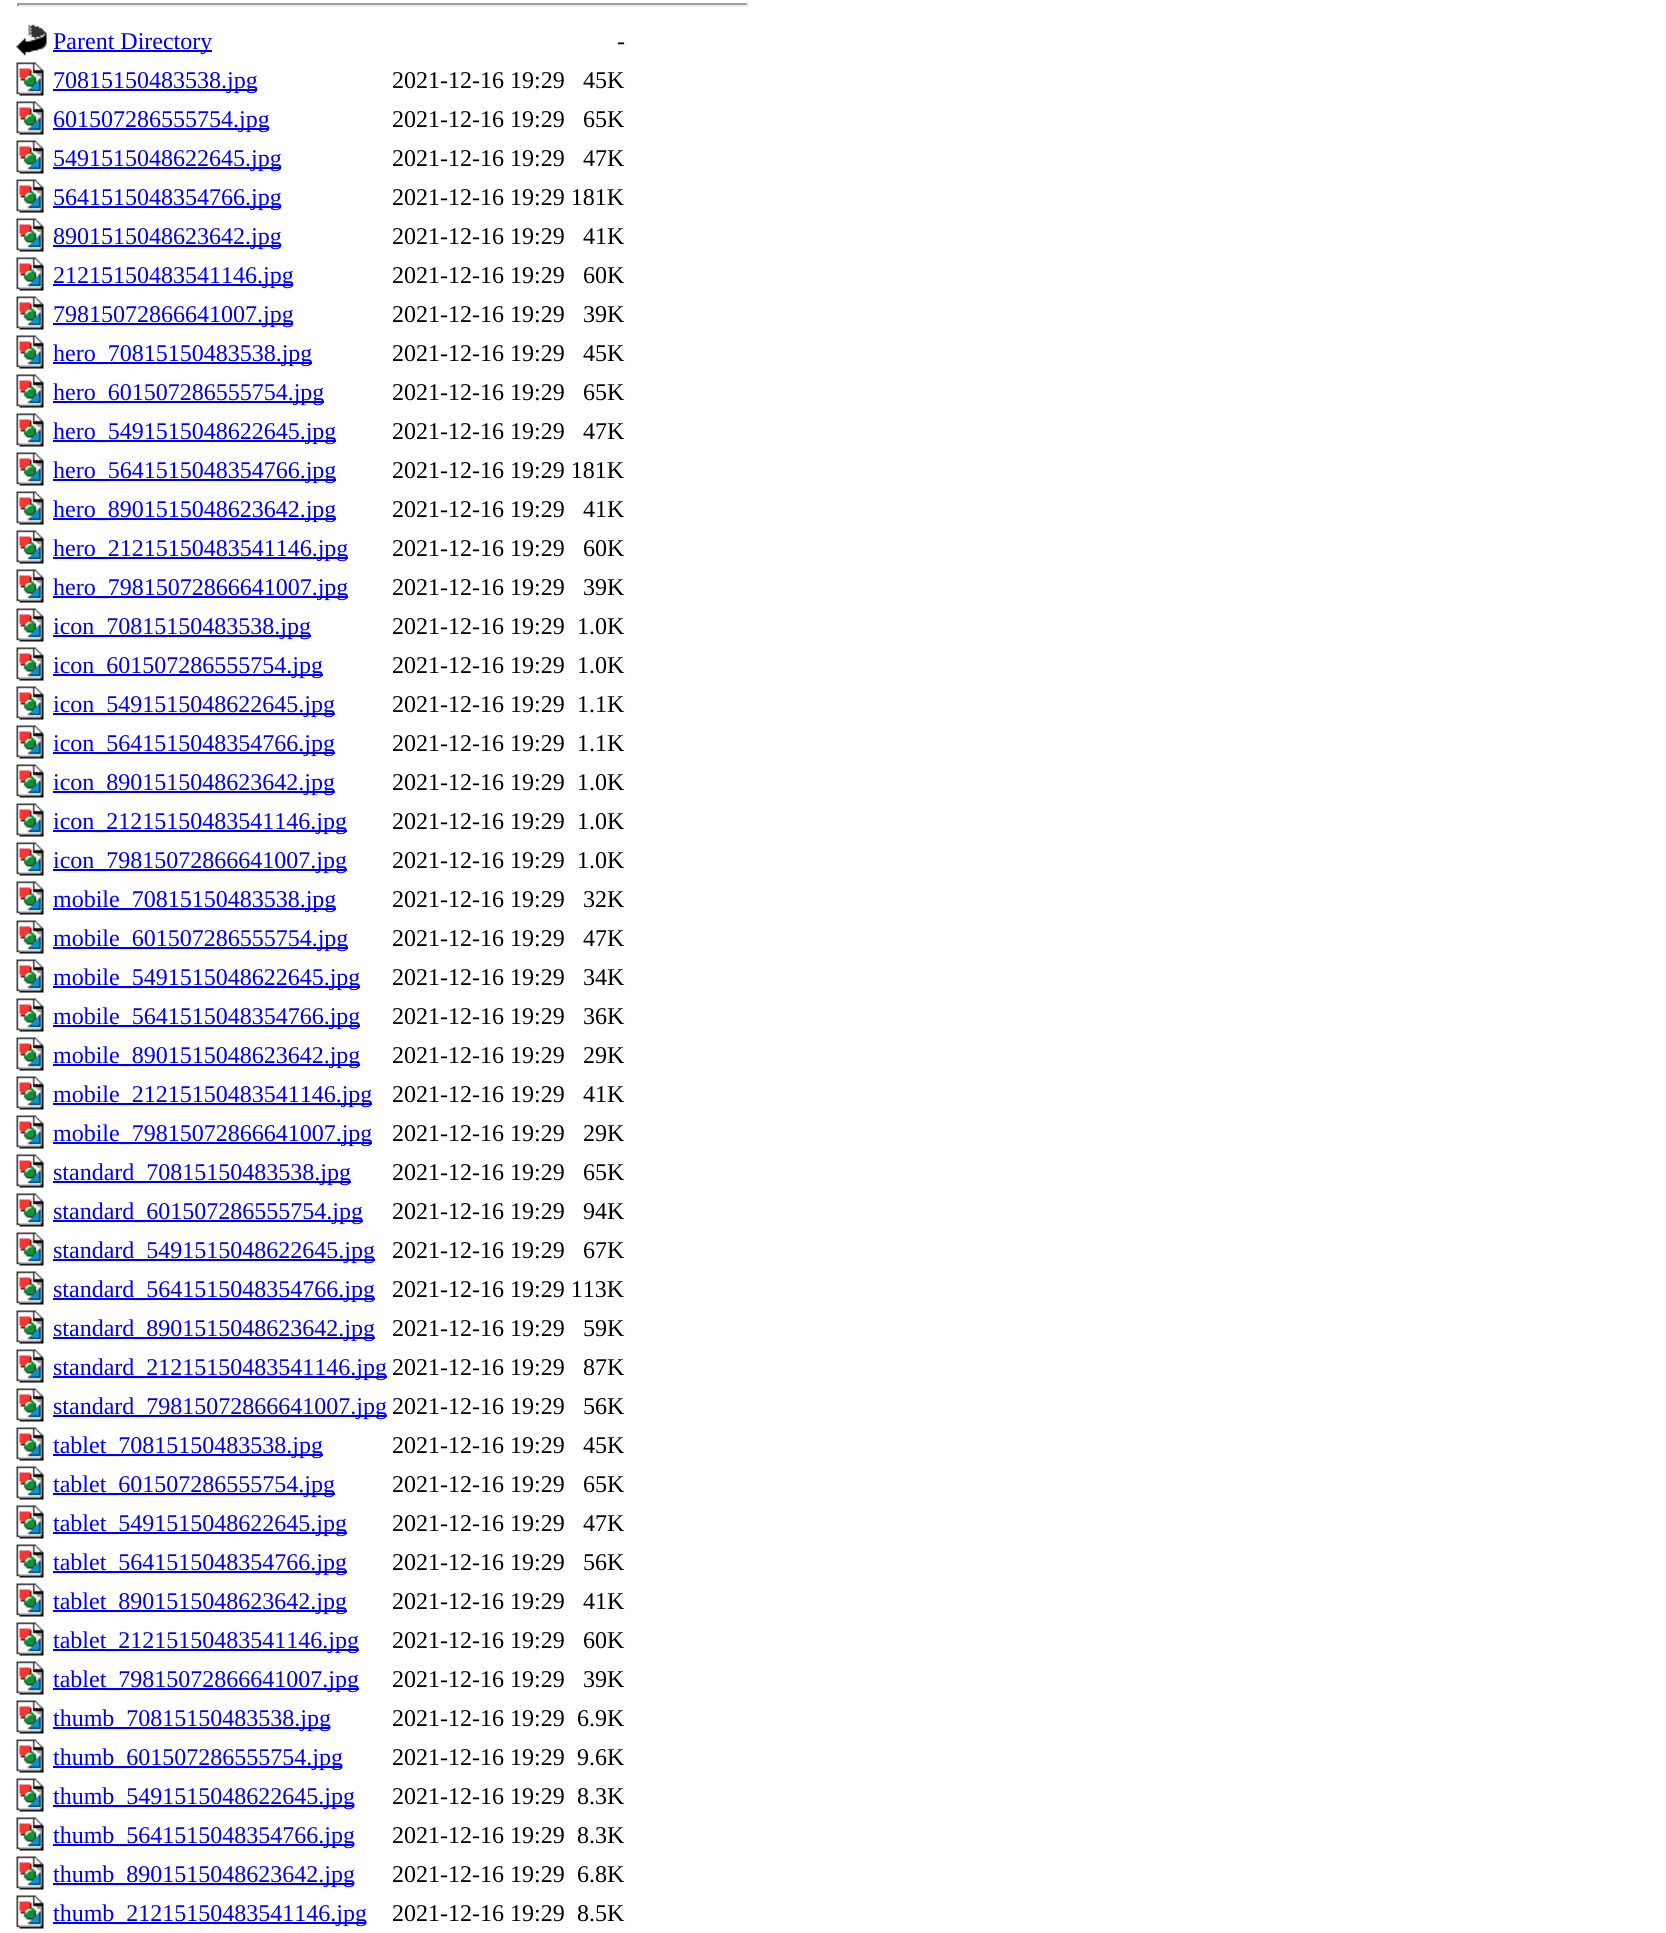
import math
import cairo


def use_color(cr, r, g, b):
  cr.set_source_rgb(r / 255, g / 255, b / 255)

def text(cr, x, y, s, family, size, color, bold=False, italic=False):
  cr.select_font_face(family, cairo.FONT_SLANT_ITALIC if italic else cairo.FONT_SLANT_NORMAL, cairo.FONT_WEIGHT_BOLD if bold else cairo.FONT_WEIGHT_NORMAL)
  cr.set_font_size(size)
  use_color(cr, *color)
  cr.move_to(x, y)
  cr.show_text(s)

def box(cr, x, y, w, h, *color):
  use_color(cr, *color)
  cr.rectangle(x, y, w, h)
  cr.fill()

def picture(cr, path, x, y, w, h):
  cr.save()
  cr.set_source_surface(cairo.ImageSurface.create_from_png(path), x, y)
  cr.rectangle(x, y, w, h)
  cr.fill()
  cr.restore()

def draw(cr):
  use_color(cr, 255, 255, 255)
  cr.paint()
  box(cr, 17, 3, 732, 2, 159, 159, 159)
  box(cr, 747, 3, 2, 3, 238, 238, 238)
  box(cr, 17, 5, 732, 2, 238, 238, 238)
  box(cr, 17, 3, 2, 3, 159, 159, 159)
  picture(cr, "img_01.png", 16, 24, 31, 32)
  box(cr, 53, 50, 159, 2, 0, 0, 238)
  picture(cr, "img_02.png", 16, 62, 28, 34)
  box(cr, 53, 89, 204, 2, 0, 0, 238)
  picture(cr, "img_02.png", 16, 101, 28, 34)
  box(cr, 53, 128, 216, 2, 0, 0, 238)
  picture(cr, "img_02.png", 16, 140, 28, 34)
  box(cr, 53, 167, 228, 2, 0, 0, 238)
  picture(cr, "img_02.png", 16, 179, 28, 34)
  box(cr, 53, 206, 228, 2, 0, 0, 238)
  picture(cr, "img_02.png", 16, 218, 28, 34)
  box(cr, 53, 245, 228, 2, 0, 0, 238)
  picture(cr, "img_02.png", 16, 257, 28, 34)
  box(cr, 53, 284, 240, 2, 0, 0, 238)
  picture(cr, "img_02.png", 16, 296, 28, 34)
  box(cr, 53, 323, 240, 2, 0, 0, 238)
  picture(cr, "img_02.png", 16, 335, 28, 34)
  box(cr, 53, 362, 259, 2, 0, 0, 238)
  picture(cr, "img_02.png", 16, 374, 28, 34)
  box(cr, 53, 401, 271, 2, 0, 0, 238)
  picture(cr, "img_02.png", 16, 413, 28, 34)
  box(cr, 53, 440, 283, 2, 0, 0, 238)
  picture(cr, "img_02.png", 16, 452, 28, 34)
  box(cr, 53, 479, 283, 2, 0, 0, 238)
  picture(cr, "img_02.png", 16, 491, 28, 34)
  box(cr, 53, 518, 283, 2, 0, 0, 238)
  picture(cr, "img_02.png", 16, 530, 28, 34)
  box(cr, 53, 557, 295, 2, 0, 0, 238)
  picture(cr, "img_02.png", 16, 569, 28, 34)
  box(cr, 53, 596, 295, 2, 0, 0, 238)
  picture(cr, "img_02.png", 16, 608, 28, 34)
  box(cr, 53, 635, 258, 2, 0, 0, 238)
  picture(cr, "img_02.png", 16, 647, 28, 34)
  box(cr, 53, 674, 270, 2, 0, 0, 238)
  picture(cr, "img_02.png", 16, 686, 28, 34)
  box(cr, 53, 713, 282, 2, 0, 0, 238)
  picture(cr, "img_02.png", 16, 725, 28, 34)
  box(cr, 53, 752, 282, 2, 0, 0, 238)
  picture(cr, "img_02.png", 16, 764, 28, 34)
  box(cr, 53, 791, 282, 2, 0, 0, 238)
  picture(cr, "img_02.png", 16, 803, 28, 34)
  box(cr, 53, 830, 294, 2, 0, 0, 238)
  picture(cr, "img_02.png", 16, 842, 28, 34)
  box(cr, 53, 869, 294, 2, 0, 0, 238)
  picture(cr, "img_02.png", 16, 881, 28, 34)
  box(cr, 53, 908, 283, 2, 0, 0, 238)
  picture(cr, "img_02.png", 16, 920, 28, 34)
  box(cr, 53, 947, 295, 2, 0, 0, 238)
  picture(cr, "img_02.png", 16, 959, 28, 34)
  box(cr, 53, 986, 307, 2, 0, 0, 238)
  picture(cr, "img_02.png", 16, 998, 28, 34)
  box(cr, 53, 1025, 307, 2, 0, 0, 238)
  picture(cr, "img_02.png", 16, 1037, 28, 34)
  box(cr, 53, 1064, 307, 2, 0, 0, 238)
  picture(cr, "img_02.png", 16, 1076, 28, 34)
  box(cr, 53, 1103, 319, 2, 0, 0, 238)
  picture(cr, "img_02.png", 16, 1115, 28, 34)
  box(cr, 53, 1142, 319, 2, 0, 0, 238)
  picture(cr, "img_02.png", 16, 1154, 28, 34)
  box(cr, 53, 1181, 298, 2, 0, 0, 238)
  picture(cr, "img_02.png", 16, 1193, 28, 34)
  box(cr, 53, 1220, 310, 2, 0, 0, 238)
  picture(cr, "img_02.png", 16, 1232, 28, 34)
  box(cr, 53, 1259, 322, 2, 0, 0, 238)
  picture(cr, "img_02.png", 16, 1271, 28, 34)
  box(cr, 53, 1298, 322, 2, 0, 0, 238)
  picture(cr, "img_02.png", 16, 1310, 28, 34)
  box(cr, 53, 1337, 322, 2, 0, 0, 238)
  picture(cr, "img_02.png", 16, 1349, 28, 34)
  box(cr, 53, 1376, 334, 2, 0, 0, 238)
  picture(cr, "img_02.png", 16, 1388, 28, 34)
  box(cr, 53, 1415, 334, 2, 0, 0, 238)
  picture(cr, "img_02.png", 16, 1427, 28, 34)
  box(cr, 53, 1454, 270, 2, 0, 0, 238)
  picture(cr, "img_02.png", 16, 1466, 28, 34)
  box(cr, 53, 1493, 282, 2, 0, 0, 238)
  picture(cr, "img_02.png", 16, 1505, 28, 34)
  box(cr, 53, 1532, 294, 2, 0, 0, 238)
  picture(cr, "img_02.png", 16, 1544, 28, 34)
  box(cr, 53, 1571, 294, 2, 0, 0, 238)
  picture(cr, "img_02.png", 16, 1583, 28, 34)
  box(cr, 53, 1610, 294, 2, 0, 0, 238)
  picture(cr, "img_02.png", 16, 1622, 28, 34)
  box(cr, 53, 1649, 306, 2, 0, 0, 238)
  picture(cr, "img_02.png", 16, 1661, 28, 34)
  box(cr, 53, 1688, 306, 2, 0, 0, 238)
  picture(cr, "img_02.png", 16, 1700, 28, 34)
  box(cr, 53, 1727, 277, 2, 0, 0, 238)
  picture(cr, "img_02.png", 16, 1739, 28, 34)
  box(cr, 53, 1766, 289, 2, 0, 0, 238)
  picture(cr, "img_02.png", 16, 1778, 28, 34)
  box(cr, 53, 1805, 301, 2, 0, 0, 238)
  picture(cr, "img_02.png", 16, 1817, 28, 34)
  box(cr, 53, 1844, 301, 2, 0, 0, 238)
  picture(cr, "img_02.png", 16, 1856, 28, 34)
  box(cr, 53, 1883, 301, 2, 0, 0, 238)
  picture(cr, "img_02.png", 16, 1895, 28, 34)
  box(cr, 53, 1922, 313, 2, 0, 0, 238)
  text(cr, 53, 49, "Parent Directory", "Liberation Serif", 24, (0, 0, 238))
  text(cr, 617, 49, "-", "Liberation Serif", 24, (0, 0, 0))
  text(cr, 53, 88, "70815150483538.jpg", "Liberation Serif", 24, (0, 0, 238))
  text(cr, 392, 88, "2021-12-16 19:29", "Liberation Serif", 24, (0, 0, 0))
  text(cr, 583, 88, "45K", "Liberation Serif", 24, (0, 0, 0))
  text(cr, 53, 127, "601507286555754.jpg", "Liberation Serif", 24, (0, 0, 238))
  text(cr, 392, 127, "2021-12-16 19:29", "Liberation Serif", 24, (0, 0, 0))
  text(cr, 583, 127, "65K", "Liberation Serif", 24, (0, 0, 0))
  text(cr, 53, 166, "5491515048622645.jpg", "Liberation Serif", 24, (0, 0, 238))
  text(cr, 392, 166, "2021-12-16 19:29", "Liberation Serif", 24, (0, 0, 0))
  text(cr, 583, 166, "47K", "Liberation Serif", 24, (0, 0, 0))
  text(cr, 53, 205, "5641515048354766.jpg", "Liberation Serif", 24, (0, 0, 238))
  text(cr, 392, 205, "2021-12-16 19:29 181K", "Liberation Serif", 24, (0, 0, 0))
  text(cr, 53, 244, "8901515048623642.jpg", "Liberation Serif", 24, (0, 0, 238))
  text(cr, 392, 244, "2021-12-16 19:29", "Liberation Serif", 24, (0, 0, 0))
  text(cr, 583, 244, "41K", "Liberation Serif", 24, (0, 0, 0))
  text(cr, 53, 283, "21215150483541146.jpg", "Liberation Serif", 24, (0, 0, 238))
  text(cr, 392, 283, "2021-12-16 19:29", "Liberation Serif", 24, (0, 0, 0))
  text(cr, 583, 283, "60K", "Liberation Serif", 24, (0, 0, 0))
  text(cr, 53, 322, "79815072866641007.jpg", "Liberation Serif", 24, (0, 0, 238))
  text(cr, 392, 322, "2021-12-16 19:29", "Liberation Serif", 24, (0, 0, 0))
  text(cr, 583, 322, "39K", "Liberation Serif", 24, (0, 0, 0))
  text(cr, 53, 361, "hero_70815150483538.jpg", "Liberation Serif", 24, (0, 0, 238))
  text(cr, 392, 361, "2021-12-16 19:29", "Liberation Serif", 24, (0, 0, 0))
  text(cr, 583, 361, "45K", "Liberation Serif", 24, (0, 0, 0))
  text(cr, 53, 400, "hero_601507286555754.jpg", "Liberation Serif", 24, (0, 0, 238))
  text(cr, 392, 400, "2021-12-16 19:29", "Liberation Serif", 24, (0, 0, 0))
  text(cr, 583, 400, "65K", "Liberation Serif", 24, (0, 0, 0))
  text(cr, 53, 439, "hero_5491515048622645.jpg", "Liberation Serif", 24, (0, 0, 238))
  text(cr, 392, 439, "2021-12-16 19:29", "Liberation Serif", 24, (0, 0, 0))
  text(cr, 583, 439, "47K", "Liberation Serif", 24, (0, 0, 0))
  text(cr, 53, 478, "hero_5641515048354766.jpg", "Liberation Serif", 24, (0, 0, 238))
  text(cr, 392, 478, "2021-12-16 19:29 181K", "Liberation Serif", 24, (0, 0, 0))
  text(cr, 53, 517, "hero_8901515048623642.jpg", "Liberation Serif", 24, (0, 0, 238))
  text(cr, 392, 517, "2021-12-16 19:29", "Liberation Serif", 24, (0, 0, 0))
  text(cr, 583, 517, "41K", "Liberation Serif", 24, (0, 0, 0))
  text(cr, 53, 556, "hero_21215150483541146.jpg", "Liberation Serif", 24, (0, 0, 238))
  text(cr, 392, 556, "2021-12-16 19:29", "Liberation Serif", 24, (0, 0, 0))
  text(cr, 583, 556, "60K", "Liberation Serif", 24, (0, 0, 0))
  text(cr, 53, 595, "hero_79815072866641007.jpg", "Liberation Serif", 24, (0, 0, 238))
  text(cr, 392, 595, "2021-12-16 19:29", "Liberation Serif", 24, (0, 0, 0))
  text(cr, 583, 595, "39K", "Liberation Serif", 24, (0, 0, 0))
  text(cr, 53, 634, "icon_70815150483538.jpg", "Liberation Serif", 24, (0, 0, 238))
  text(cr, 392, 634, "2021-12-16 19:29", "Liberation Serif", 24, (0, 0, 0))
  text(cr, 577, 634, "1.0K", "Liberation Serif", 24, (0, 0, 0))
  text(cr, 53, 673, "icon_601507286555754.jpg", "Liberation Serif", 24, (0, 0, 238))
  text(cr, 392, 673, "2021-12-16 19:29", "Liberation Serif", 24, (0, 0, 0))
  text(cr, 577, 673, "1.0K", "Liberation Serif", 24, (0, 0, 0))
  text(cr, 53, 712, "icon_5491515048622645.jpg", "Liberation Serif", 24, (0, 0, 238))
  text(cr, 392, 712, "2021-12-16 19:29", "Liberation Serif", 24, (0, 0, 0))
  text(cr, 577, 712, "1.1K", "Liberation Serif", 24, (0, 0, 0))
  text(cr, 53, 751, "icon_5641515048354766.jpg", "Liberation Serif", 24, (0, 0, 238))
  text(cr, 392, 751, "2021-12-16 19:29", "Liberation Serif", 24, (0, 0, 0))
  text(cr, 577, 751, "1.1K", "Liberation Serif", 24, (0, 0, 0))
  text(cr, 53, 790, "icon_8901515048623642.jpg", "Liberation Serif", 24, (0, 0, 238))
  text(cr, 392, 790, "2021-12-16 19:29", "Liberation Serif", 24, (0, 0, 0))
  text(cr, 577, 790, "1.0K", "Liberation Serif", 24, (0, 0, 0))
  text(cr, 53, 829, "icon_21215150483541146.jpg", "Liberation Serif", 24, (0, 0, 238))
  text(cr, 392, 829, "2021-12-16 19:29", "Liberation Serif", 24, (0, 0, 0))
  text(cr, 577, 829, "1.0K", "Liberation Serif", 24, (0, 0, 0))
  text(cr, 53, 868, "icon_79815072866641007.jpg", "Liberation Serif", 24, (0, 0, 238))
  text(cr, 392, 868, "2021-12-16 19:29", "Liberation Serif", 24, (0, 0, 0))
  text(cr, 577, 868, "1.0K", "Liberation Serif", 24, (0, 0, 0))
  text(cr, 53, 907, "mobile_70815150483538.jpg", "Liberation Serif", 24, (0, 0, 238))
  text(cr, 392, 907, "2021-12-16 19:29", "Liberation Serif", 24, (0, 0, 0))
  text(cr, 583, 907, "32K", "Liberation Serif", 24, (0, 0, 0))
  text(cr, 53, 946, "mobile_601507286555754.jpg", "Liberation Serif", 24, (0, 0, 238))
  text(cr, 392, 946, "2021-12-16 19:29", "Liberation Serif", 24, (0, 0, 0))
  text(cr, 583, 946, "47K", "Liberation Serif", 24, (0, 0, 0))
  text(cr, 53, 985, "mobile_5491515048622645.jpg", "Liberation Serif", 24, (0, 0, 238))
  text(cr, 392, 985, "2021-12-16 19:29", "Liberation Serif", 24, (0, 0, 0))
  text(cr, 583, 985, "34K", "Liberation Serif", 24, (0, 0, 0))
  text(cr, 53, 1024, "mobile_5641515048354766.jpg", "Liberation Serif", 24, (0, 0, 238))
  text(cr, 392, 1024, "2021-12-16 19:29", "Liberation Serif", 24, (0, 0, 0))
  text(cr, 583, 1024, "36K", "Liberation Serif", 24, (0, 0, 0))
  text(cr, 53, 1063, "mobile_8901515048623642.jpg", "Liberation Serif", 24, (0, 0, 238))
  text(cr, 392, 1063, "2021-12-16 19:29", "Liberation Serif", 24, (0, 0, 0))
  text(cr, 583, 1063, "29K", "Liberation Serif", 24, (0, 0, 0))
  text(cr, 53, 1102, "mobile_21215150483541146.jpg", "Liberation Serif", 24, (0, 0, 238))
  text(cr, 392, 1102, "2021-12-16 19:29", "Liberation Serif", 24, (0, 0, 0))
  text(cr, 583, 1102, "41K", "Liberation Serif", 24, (0, 0, 0))
  text(cr, 53, 1141, "mobile_79815072866641007.jpg", "Liberation Serif", 24, (0, 0, 238))
  text(cr, 392, 1141, "2021-12-16 19:29", "Liberation Serif", 24, (0, 0, 0))
  text(cr, 583, 1141, "29K", "Liberation Serif", 24, (0, 0, 0))
  text(cr, 53, 1180, "standard_70815150483538.jpg", "Liberation Serif", 24, (0, 0, 238))
  text(cr, 392, 1180, "2021-12-16 19:29", "Liberation Serif", 24, (0, 0, 0))
  text(cr, 583, 1180, "65K", "Liberation Serif", 24, (0, 0, 0))
  text(cr, 53, 1219, "standard_601507286555754.jpg", "Liberation Serif", 24, (0, 0, 238))
  text(cr, 392, 1219, "2021-12-16 19:29", "Liberation Serif", 24, (0, 0, 0))
  text(cr, 583, 1219, "94K", "Liberation Serif", 24, (0, 0, 0))
  text(cr, 53, 1258, "standard_5491515048622645.jpg", "Liberation Serif", 24, (0, 0, 238))
  text(cr, 392, 1258, "2021-12-16 19:29", "Liberation Serif", 24, (0, 0, 0))
  text(cr, 583, 1258, "67K", "Liberation Serif", 24, (0, 0, 0))
  text(cr, 53, 1297, "standard_5641515048354766.jpg", "Liberation Serif", 24, (0, 0, 238))
  text(cr, 392, 1297, "2021-12-16 19:29 113K", "Liberation Serif", 24, (0, 0, 0))
  text(cr, 53, 1336, "standard_8901515048623642.jpg", "Liberation Serif", 24, (0, 0, 238))
  text(cr, 392, 1336, "2021-12-16 19:29", "Liberation Serif", 24, (0, 0, 0))
  text(cr, 583, 1336, "59K", "Liberation Serif", 24, (0, 0, 0))
  text(cr, 53, 1375, "standard_21215150483541146.jpg", "Liberation Serif", 24, (0, 0, 238))
  text(cr, 392, 1375, "2021-12-16 19:29", "Liberation Serif", 24, (0, 0, 0))
  text(cr, 583, 1375, "87K", "Liberation Serif", 24, (0, 0, 0))
  text(cr, 53, 1414, "standard_79815072866641007.jpg", "Liberation Serif", 24, (0, 0, 238))
  text(cr, 392, 1414, "2021-12-16 19:29", "Liberation Serif", 24, (0, 0, 0))
  text(cr, 583, 1414, "56K", "Liberation Serif", 24, (0, 0, 0))
  text(cr, 53, 1453, "tablet_70815150483538.jpg", "Liberation Serif", 24, (0, 0, 238))
  text(cr, 392, 1453, "2021-12-16 19:29", "Liberation Serif", 24, (0, 0, 0))
  text(cr, 583, 1453, "45K", "Liberation Serif", 24, (0, 0, 0))
  text(cr, 53, 1492, "tablet_601507286555754.jpg", "Liberation Serif", 24, (0, 0, 238))
  text(cr, 392, 1492, "2021-12-16 19:29", "Liberation Serif", 24, (0, 0, 0))
  text(cr, 583, 1492, "65K", "Liberation Serif", 24, (0, 0, 0))
  text(cr, 53, 1531, "tablet_5491515048622645.jpg", "Liberation Serif", 24, (0, 0, 238))
  text(cr, 392, 1531, "2021-12-16 19:29", "Liberation Serif", 24, (0, 0, 0))
  text(cr, 583, 1531, "47K", "Liberation Serif", 24, (0, 0, 0))
  text(cr, 53, 1570, "tablet_5641515048354766.jpg", "Liberation Serif", 24, (0, 0, 238))
  text(cr, 392, 1570, "2021-12-16 19:29", "Liberation Serif", 24, (0, 0, 0))
  text(cr, 583, 1570, "56K", "Liberation Serif", 24, (0, 0, 0))
  text(cr, 53, 1609, "tablet_8901515048623642.jpg", "Liberation Serif", 24, (0, 0, 238))
  text(cr, 392, 1609, "2021-12-16 19:29", "Liberation Serif", 24, (0, 0, 0))
  text(cr, 583, 1609, "41K", "Liberation Serif", 24, (0, 0, 0))
  text(cr, 53, 1648, "tablet_21215150483541146.jpg", "Liberation Serif", 24, (0, 0, 238))
  text(cr, 392, 1648, "2021-12-16 19:29", "Liberation Serif", 24, (0, 0, 0))
  text(cr, 583, 1648, "60K", "Liberation Serif", 24, (0, 0, 0))
  text(cr, 53, 1687, "tablet_79815072866641007.jpg", "Liberation Serif", 24, (0, 0, 238))
  text(cr, 392, 1687, "2021-12-16 19:29", "Liberation Serif", 24, (0, 0, 0))
  text(cr, 583, 1687, "39K", "Liberation Serif", 24, (0, 0, 0))
  text(cr, 53, 1726, "thumb_70815150483538.jpg", "Liberation Serif", 24, (0, 0, 238))
  text(cr, 392, 1726, "2021-12-16 19:29", "Liberation Serif", 24, (0, 0, 0))
  text(cr, 577, 1726, "6.9K", "Liberation Serif", 24, (0, 0, 0))
  text(cr, 53, 1765, "thumb_601507286555754.jpg", "Liberation Serif", 24, (0, 0, 238))
  text(cr, 392, 1765, "2021-12-16 19:29", "Liberation Serif", 24, (0, 0, 0))
  text(cr, 577, 1765, "9.6K", "Liberation Serif", 24, (0, 0, 0))
  text(cr, 53, 1804, "thumb_5491515048622645.jpg", "Liberation Serif", 24, (0, 0, 238))
  text(cr, 392, 1804, "2021-12-16 19:29", "Liberation Serif", 24, (0, 0, 0))
  text(cr, 577, 1804, "8.3K", "Liberation Serif", 24, (0, 0, 0))
  text(cr, 53, 1843, "thumb_5641515048354766.jpg", "Liberation Serif", 24, (0, 0, 238))
  text(cr, 392, 1843, "2021-12-16 19:29", "Liberation Serif", 24, (0, 0, 0))
  text(cr, 577, 1843, "8.3K", "Liberation Serif", 24, (0, 0, 0))
  text(cr, 53, 1882, "thumb_8901515048623642.jpg", "Liberation Serif", 24, (0, 0, 238))
  text(cr, 392, 1882, "2021-12-16 19:29", "Liberation Serif", 24, (0, 0, 0))
  text(cr, 577, 1882, "6.8K", "Liberation Serif", 24, (0, 0, 0))
  text(cr, 53, 1921, "thumb_21215150483541146.jpg", "Liberation Serif", 24, (0, 0, 238))
  text(cr, 392, 1921, "2021-12-16 19:29", "Liberation Serif", 24, (0, 0, 0))
  text(cr, 577, 1921, "8.5K", "Liberation Serif", 24, (0, 0, 0))


surface = cairo.ImageSurface(cairo.FORMAT_RGB24, 1666, 1933)
cr = cairo.Context(surface)
options = cairo.FontOptions()
options.set_hint_metrics(cairo.HINT_METRICS_OFF)
options.set_hint_style(cairo.HINT_STYLE_NONE)
cr.set_font_options(options)
cr.set_miter_limit(4)
draw(cr)
surface.write_to_png("out.png")
